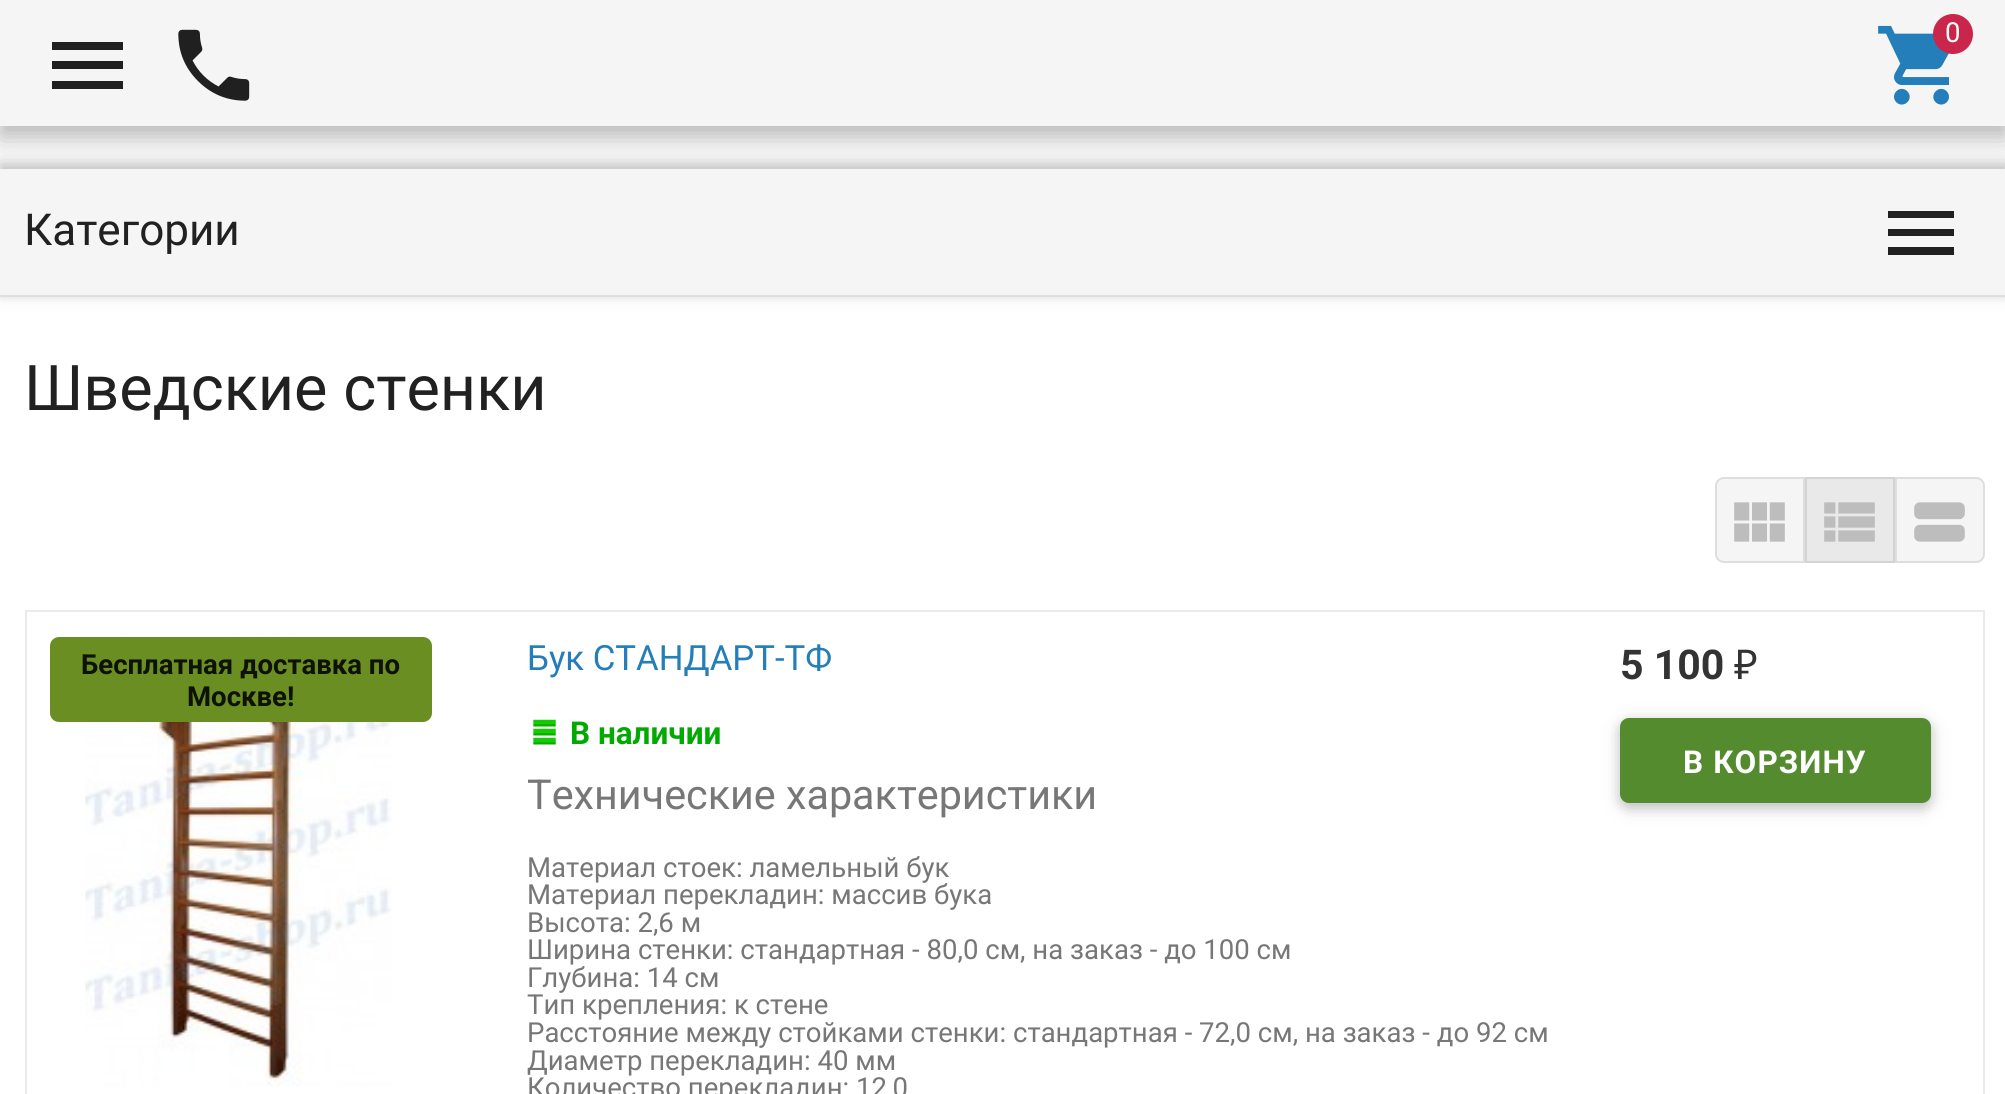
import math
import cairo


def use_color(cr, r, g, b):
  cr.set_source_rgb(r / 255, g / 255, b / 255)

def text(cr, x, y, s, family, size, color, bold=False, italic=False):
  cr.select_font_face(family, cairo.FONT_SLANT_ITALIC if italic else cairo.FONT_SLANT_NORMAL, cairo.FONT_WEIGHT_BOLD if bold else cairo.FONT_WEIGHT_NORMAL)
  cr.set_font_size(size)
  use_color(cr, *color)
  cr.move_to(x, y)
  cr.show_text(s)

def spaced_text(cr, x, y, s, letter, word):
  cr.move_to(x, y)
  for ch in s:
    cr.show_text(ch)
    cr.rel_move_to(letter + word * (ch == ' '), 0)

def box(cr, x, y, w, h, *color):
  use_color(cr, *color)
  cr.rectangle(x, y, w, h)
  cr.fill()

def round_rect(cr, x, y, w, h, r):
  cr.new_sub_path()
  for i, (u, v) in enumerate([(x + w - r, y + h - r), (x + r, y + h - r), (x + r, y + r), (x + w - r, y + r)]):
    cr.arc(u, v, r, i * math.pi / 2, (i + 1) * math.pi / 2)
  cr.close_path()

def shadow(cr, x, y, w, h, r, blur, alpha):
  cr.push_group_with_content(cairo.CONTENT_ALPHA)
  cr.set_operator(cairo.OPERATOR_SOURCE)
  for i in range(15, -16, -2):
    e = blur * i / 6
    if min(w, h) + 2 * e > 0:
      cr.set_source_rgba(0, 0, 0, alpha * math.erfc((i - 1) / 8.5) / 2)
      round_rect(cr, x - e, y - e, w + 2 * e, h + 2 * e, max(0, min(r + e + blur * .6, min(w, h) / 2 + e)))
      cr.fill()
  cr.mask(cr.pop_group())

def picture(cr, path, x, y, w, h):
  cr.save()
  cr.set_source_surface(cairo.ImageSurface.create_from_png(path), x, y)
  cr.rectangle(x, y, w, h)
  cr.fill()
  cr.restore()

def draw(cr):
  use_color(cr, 255, 255, 255)
  cr.paint()
  use_color(cr, 0, 0, 0)
  shadow(cr, 0, 164, 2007, 129, 0, 11, 0.12)
  shadow(cr, 0, 164, 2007, 129, 0, 5.5, 0.16)
  box(cr, 0, 169, 2005, 126, 245, 245, 245)
  use_color(cr, 0, 0, 0)
  shadow(cr, 0, 9, 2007, 126, 0, 17, 0.15)
  shadow(cr, 0, 11, 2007, 126, 0, 12.5, 0.18)
  box(cr, 0, 0, 2005, 126, 245, 245, 245)
  use_color(cr, 32, 32, 32)
  cr.new_path()
  cr.move_to(52, 42)
  cr.line_to(123, 42)
  cr.line_to(123, 50)
  cr.line_to(52, 50)
  cr.close_path()
  cr.move_to(52, 69)
  cr.line_to(52, 61)
  cr.line_to(123, 61)
  cr.line_to(123, 69)
  cr.close_path()
  cr.move_to(52, 89)
  cr.line_to(52, 81)
  cr.line_to(123, 81)
  cr.line_to(123, 89)
  cr.close_path()
  cr.fill()
  picture(cr, "img_01.png", 178, 29, 72, 72)
  picture(cr, "img_02.png", 1878, 25, 71, 80)
  use_color(cr, 202, 38, 75)
  cr.arc(1953, 34, 20, 0, 2 * math.pi)
  cr.fill()
  box(cr, 0, 295, 2005, 2, 222, 222, 222)
  use_color(cr, 32, 32, 32)
  cr.new_path()
  cr.move_to(1888, 211)
  cr.line_to(1954, 211)
  cr.line_to(1954, 218)
  cr.line_to(1888, 218)
  cr.close_path()
  cr.move_to(1888, 236)
  cr.line_to(1888, 229)
  cr.line_to(1954, 229)
  cr.line_to(1954, 236)
  cr.close_path()
  cr.move_to(1888, 255)
  cr.line_to(1888, 247)
  cr.line_to(1954, 247)
  cr.line_to(1954, 255)
  cr.close_path()
  cr.fill()
  use_color(cr, 245, 245, 245)
  cr.new_path()
  cr.move_to(1724, 477)
  cr.line_to(1805, 477)
  cr.line_to(1805, 563)
  cr.line_to(1724, 563)
  cr.curve_to(1719, 563, 1715, 559, 1715, 554)
  cr.line_to(1715, 486)
  cr.curve_to(1715, 481, 1719, 477, 1724, 477)
  cr.close_path()
  cr.fill()
  cr.new_path()
  cr.move_to(1724, 478)
  cr.line_to(1804, 478)
  cr.line_to(1804, 562)
  cr.line_to(1724, 562)
  cr.curve_to(1719.5, 562, 1716, 558.5, 1716, 554)
  cr.line_to(1716, 486)
  cr.curve_to(1716, 481.5, 1719.5, 478, 1724, 478)
  cr.close_path()
  cr.set_source_rgba(0.2, 0.2, 0.2, 0.12)
  cr.stroke()
  picture(cr, "img_03.png", 1734, 502, 51, 40)
  use_color(cr, 233, 233, 233)
  cr.rectangle(1806, 478, 88, 84)
  cr.fill_preserve()
  use_color(cr, 211, 211, 211)
  cr.stroke()
  picture(cr, "img_04.png", 1824, 502, 51, 40)
  use_color(cr, 245, 245, 245)
  cr.new_path()
  cr.move_to(1895, 477)
  cr.line_to(1976, 477)
  cr.curve_to(1981, 477, 1985, 481, 1985, 486)
  cr.line_to(1985, 554)
  cr.curve_to(1985, 559, 1981, 563, 1976, 563)
  cr.line_to(1895, 563)
  cr.close_path()
  cr.fill()
  cr.new_path()
  cr.move_to(1896, 478)
  cr.line_to(1976, 478)
  cr.curve_to(1980.5, 478, 1984, 481.5, 1984, 486)
  cr.line_to(1984, 554)
  cr.curve_to(1984, 558.5, 1980.5, 562, 1976, 562)
  cr.line_to(1896, 562)
  cr.close_path()
  cr.set_source_rgba(0.2, 0.2, 0.2, 0.12)
  cr.stroke()
  picture(cr, "img_05.png", 1914, 502, 51, 40)
  cr.rectangle(26, 611, 1958, 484)
  use_color(cr, 235, 235, 235)
  cr.stroke()
  picture(cr, "img_06.png", 85, 636, 307, 451)
  use_color(cr, 107, 142, 35)
  round_rect(cr, 50, 637, 382, 85, 9)
  cr.fill()
  picture(cr, "img_07.png", 533, 719, 23, 26)
  use_color(cr, 0, 0, 0)
  shadow(cr, 1620, 722, 311, 86, 9, 11, 0.12)
  shadow(cr, 1620, 722, 311, 86, 9, 5.5, 0.16)
  use_color(cr, 85, 139, 47)
  round_rect(cr, 1620, 718, 311, 85, 9)
  cr.fill()
  text(cr, 1945, 42, "0", "Roboto", 27.55, (255, 255, 255))
  text(cr, 24, 245, "Категории", "Roboto", 44, (33, 33, 33))
  text(cr, 24, 410, "Шведские стенки", "Roboto", 63, (33, 33, 33))
  text(cr, 81, 674, "Бесплатная доставка по", "Roboto", 27.55, (14, 18, 5), bold=True)
  text(cr, 187, 706, "Москве!", "Roboto", 27.55, (14, 18, 5), bold=True)
  text(cr, 527, 670, "Бук СТАНДАРТ-ТФ", "Roboto", 34.75, (35, 126, 185))
  text(cr, 570, 744, "В наличии", "Roboto", 31.5, (0, 170, 0), bold=True)
  text(cr, 527, 809, "Технические характеристики", "Roboto", 41.3, (119, 119, 119))
  text(cr, 527, 877, "Материал стоек: ламельный бук", "Roboto", 27.55, (119, 119, 119))
  text(cr, 527, 904, "Материал перекладин: массив бука", "Roboto", 27.55, (119, 119, 119))
  text(cr, 527, 932, "Высота: 2,6 м", "Roboto", 27.55, (119, 119, 119))
  text(cr, 527, 959, "Ширина стенки: стандартная - 80,0 см, на заказ - до 100 см", "Roboto", 27.55, (119, 119, 119))
  text(cr, 527, 987, "Глубина: 14 см", "Roboto", 27.55, (119, 119, 119))
  text(cr, 527, 1014, "Тип крепления: к стене", "Roboto", 27.55, (119, 119, 119))
  text(cr, 527, 1042, "Расстояние между стойками стенки: стандартная - 72,0 см, на заказ - до 92 см", "Roboto", 27.55, (119, 119, 119))
  text(cr, 527, 1070, "Диаметр перекладин: 40 мм", "Roboto", 27.55, (119, 119, 119))
  text(cr, 527, 1097, "Количество перекладин: 12,0", "Roboto", 27.55, (119, 119, 119))
  text(cr, 1620, 679, "5 100", "Roboto", 41, (51, 51, 51), bold=True)
  text(cr, 1734, 679, "₽", "Noto Sans", 41, (51, 51, 51))
  cr.select_font_face("Roboto", cairo.FONT_SLANT_NORMAL, cairo.FONT_WEIGHT_BOLD)
  cr.set_font_size(31.5)
  use_color(cr, 255, 255, 255)
  spaced_text(cr, 1683, 773, "В КОРЗИНУ", 1.1, 0)


surface = cairo.ImageSurface(cairo.FORMAT_RGB24, 2005, 1094)
cr = cairo.Context(surface)
options = cairo.FontOptions()
options.set_hint_metrics(cairo.HINT_METRICS_OFF)
options.set_hint_style(cairo.HINT_STYLE_NONE)
cr.set_font_options(options)
cr.set_miter_limit(4)
draw(cr)
surface.write_to_png("out.png")
